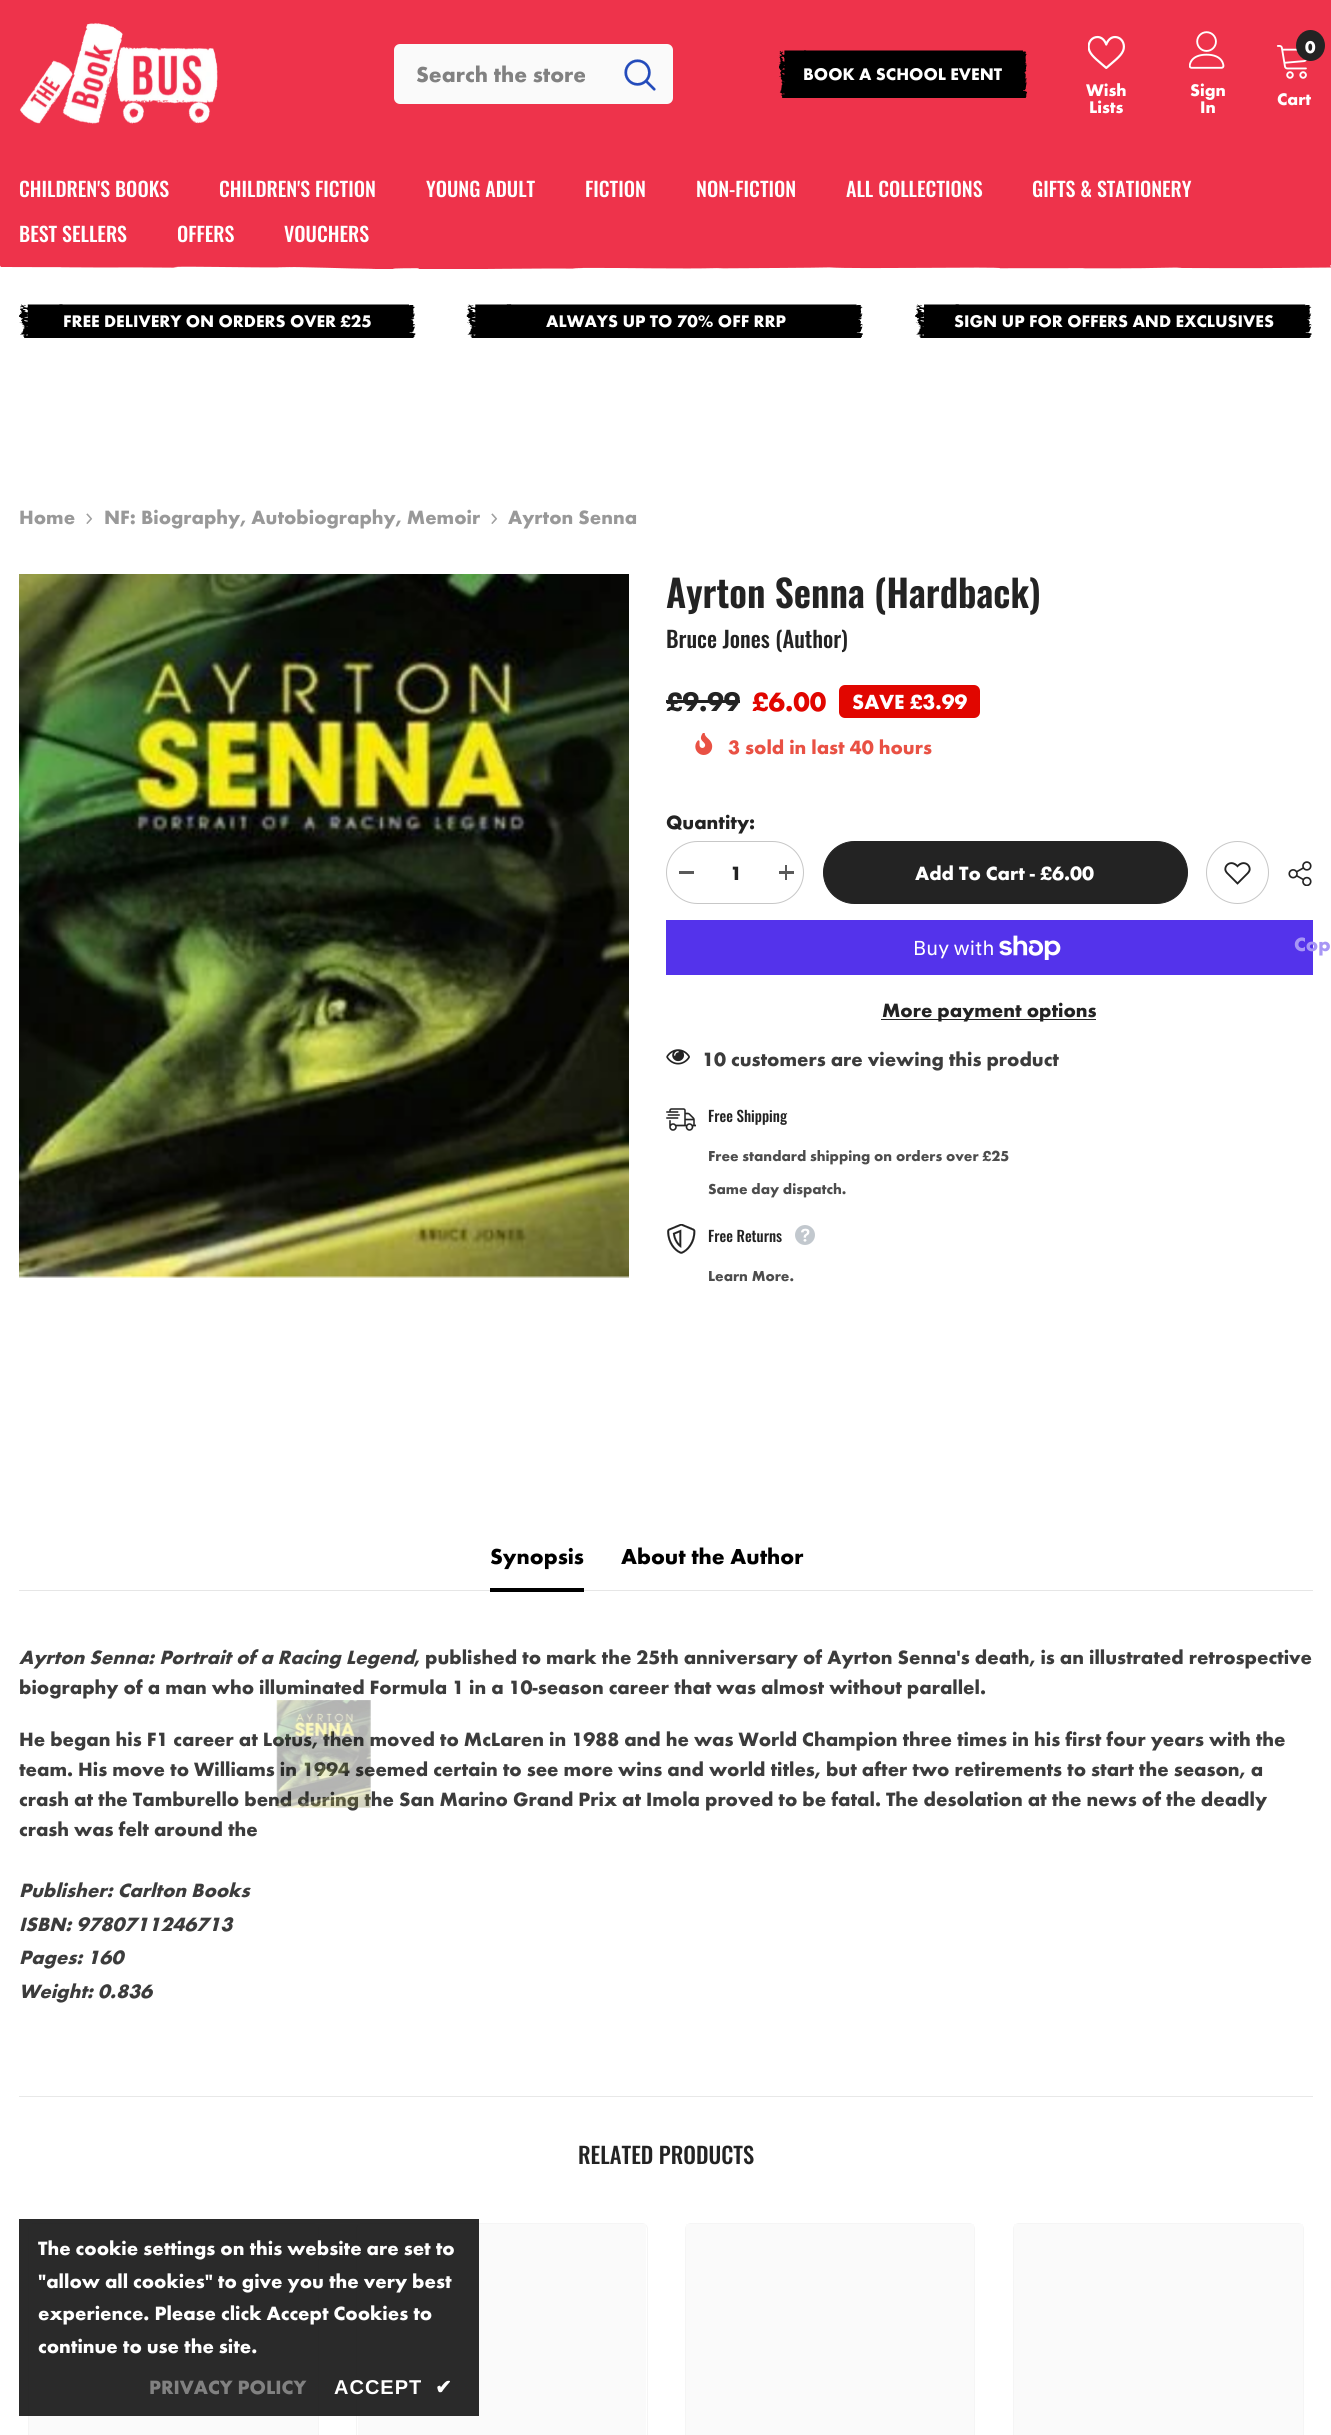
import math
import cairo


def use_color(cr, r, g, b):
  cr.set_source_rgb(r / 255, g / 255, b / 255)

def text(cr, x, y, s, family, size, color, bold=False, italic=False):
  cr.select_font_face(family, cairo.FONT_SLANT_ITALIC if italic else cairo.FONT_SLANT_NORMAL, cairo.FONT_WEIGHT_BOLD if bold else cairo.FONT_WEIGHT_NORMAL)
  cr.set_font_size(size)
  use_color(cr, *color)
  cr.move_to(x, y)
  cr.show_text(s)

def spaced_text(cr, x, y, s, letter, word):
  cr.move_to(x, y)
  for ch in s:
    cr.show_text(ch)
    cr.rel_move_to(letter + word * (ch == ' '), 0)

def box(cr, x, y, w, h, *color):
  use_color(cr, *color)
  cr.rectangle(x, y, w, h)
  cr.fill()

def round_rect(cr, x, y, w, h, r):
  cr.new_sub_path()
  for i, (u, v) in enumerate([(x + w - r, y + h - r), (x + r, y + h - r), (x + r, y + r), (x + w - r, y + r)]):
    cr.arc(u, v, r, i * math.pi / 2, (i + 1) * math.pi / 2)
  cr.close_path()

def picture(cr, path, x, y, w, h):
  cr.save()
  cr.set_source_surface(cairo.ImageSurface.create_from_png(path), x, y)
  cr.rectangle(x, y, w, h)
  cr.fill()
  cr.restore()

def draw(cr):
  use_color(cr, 255, 255, 255)
  cr.paint()
  box(cr, 0, 0, 1331, 265, 238, 51, 75)
  picture(cr, "img_01.png", 20, 23, 198, 101)
  use_color(cr, 250, 250, 250)
  round_rect(cr, 394, 44, 279, 60, 6)
  cr.fill()
  picture(cr, "img_02.png", 624, 59, 32, 32)
  picture(cr, "img_03.png", 779, 50, 248, 48)
  picture(cr, "img_04.png", 1276, 45, 31, 34)
  use_color(cr, 35, 35, 35)
  cr.new_path()
  cr.move_to(1310.5, 30)
  cr.curve_to(1318.5, 30, 1325, 37, 1325, 45.5)
  cr.curve_to(1325, 54, 1318.5, 61, 1310.5, 61)
  cr.curve_to(1302.5, 61, 1296, 54, 1296, 45.5)
  cr.curve_to(1296, 37, 1302.5, 30, 1310.5, 30)
  cr.close_path()
  cr.fill()
  picture(cr, "img_05.png", 1088, 35, 37, 34)
  picture(cr, "img_06.png", 1189, 31, 36, 38)
  picture(cr, "img_07.png", 0, 265, 1331, 4)
  picture(cr, "img_08.png", 19, 304, 397, 34)
  picture(cr, "img_09.png", 466, 304, 397, 34)
  picture(cr, "img_10.png", 915, 304, 397, 34)
  picture(cr, "img_11.png", 86, 513, 7, 11)
  picture(cr, "img_11.png", 491, 513, 7, 11)
  picture(cr, "img_12.png", 19, 574, 610, 704)
  box(cr, 666, 700, 74, 3, 35, 35, 35)
  use_color(cr, 225, 6, 0)
  round_rect(cr, 839, 685, 141, 33, 6)
  cr.fill()
  picture(cr, "img_14.png", 695, 733, 18, 22)
  round_rect(cr, 666.5, 841.5, 137, 62, 31)
  use_color(cr, 199, 199, 199)
  cr.set_line_width(1)
  cr.stroke()
  box(cr, 679, 871, 15, 3, 90, 90, 90)
  box(cr, 779, 871, 15, 3, 90, 90, 90)
  box(cr, 785, 865, 2, 15, 90, 90, 90)
  use_color(cr, 35, 35, 35)
  round_rect(cr, 823.5, 841.5, 364, 62, 31)
  cr.fill_preserve()
  cr.stroke()
  cr.arc(1237.5, 872.5, 31, 0, 2 * math.pi)
  use_color(cr, 199, 199, 199)
  cr.stroke()
  picture(cr, "img_15.png", 1224, 862, 27, 23)
  picture(cr, "img_16.png", 1288, 861, 24, 25)
  box(cr, 666, 920, 647, 55, 84, 51, 235)
  picture(cr, "img_17.png", 999, 935, 62, 25)
  box(cr, 881, 1019, 215, 1, 35, 35, 35)
  picture(cr, "img_18.png", 666, 1049, 24, 16)
  picture(cr, "img_19.png", 666, 1108, 30, 23)
  picture(cr, "img_20.png", 667, 1224, 29, 30)
  picture(cr, "img_21.png", 795, 1225, 20, 20)
  box(cr, 19, 1590, 1294, 1, 230, 230, 230)
  box(cr, 490, 1588, 94, 4, 0, 0, 0)
  box(cr, 19, 2096, 1294, 1, 232, 232, 232)
  round_rect(cr, 28.5, 2223.5, 290, 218, 5.5)
  use_color(cr, 245, 245, 245)
  cr.stroke()
  gradient = cairo.LinearGradient(-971, 2415, 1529, 2415)
  gradient.add_color_stop_rgba(0.04, 0.98, 0.98, 0.98, 1)
  gradient.add_color_stop_rgba(0.25, 0.945, 0.949, 0.953, 1)
  gradient.add_color_stop_rgba(0.36, 0.98, 0.98, 0.98, 1)
  cr.set_source(gradient)
  cr.rectangle(29, 2224, 289, 211)
  cr.fill()
  round_rect(cr, 356.5, 2223.5, 291, 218, 5.5)
  use_color(cr, 245, 245, 245)
  cr.stroke()
  gradient = cairo.LinearGradient(-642, 2415, 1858, 2415)
  gradient.add_color_stop_rgba(0.04, 0.98, 0.98, 0.98, 1)
  gradient.add_color_stop_rgba(0.25, 0.945, 0.949, 0.953, 1)
  gradient.add_color_stop_rgba(0.36, 0.98, 0.98, 0.98, 1)
  cr.set_source(gradient)
  cr.rectangle(358, 2224, 288, 211)
  cr.fill()
  round_rect(cr, 685.5, 2223.5, 289, 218, 5.5)
  use_color(cr, 245, 245, 245)
  cr.stroke()
  gradient = cairo.LinearGradient(-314, 2415, 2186, 2415)
  gradient.add_color_stop_rgba(0.04, 0.98, 0.98, 0.98, 1)
  gradient.add_color_stop_rgba(0.25, 0.945, 0.949, 0.953, 1)
  gradient.add_color_stop_rgba(0.36, 0.98, 0.98, 0.98, 1)
  cr.set_source(gradient)
  cr.rectangle(686, 2224, 288, 211)
  cr.fill()
  round_rect(cr, 1013.5, 2223.5, 290, 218, 5.5)
  use_color(cr, 245, 245, 245)
  cr.stroke()
  gradient = cairo.LinearGradient(14, 2415, 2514, 2415)
  gradient.add_color_stop_rgba(0.04, 0.98, 0.98, 0.98, 1)
  gradient.add_color_stop_rgba(0.25, 0.945, 0.949, 0.953, 1)
  gradient.add_color_stop_rgba(0.36, 0.98, 0.98, 0.98, 1)
  cr.set_source(gradient)
  cr.rectangle(1014, 2224, 289, 211)
  cr.fill()
  cr.set_source_rgba(0.078, 0.078, 0.078, 0.9)
  cr.rectangle(19, 2219, 460, 197)
  cr.fill()
  cr.save()
  cr.rectangle(416, 59, 169, 31)
  cr.clip()
  text(cr, 416, 82, "Search the store", "Futura", 22.5, (129, 129, 129), bold=True)
  cr.restore()
  text(cr, 803, 80, "BOOK A SCHOOL EVENT", "Futura", 17.5, (255, 255, 255), bold=True)
  text(cr, 1305, 53, "0", "Futura", 17.5, (255, 255, 255), bold=True)
  text(cr, 1277, 105, "Cart", "Futura", 17.5, (255, 255, 255), bold=True)
  text(cr, 1086, 96, "Wish", "Futura", 17.5, (255, 255, 255), bold=True)
  text(cr, 1089, 113, "Lists", "Futura", 17.5, (255, 255, 255), bold=True)
  text(cr, 1190, 96, "Sign", "Futura", 17.5, (255, 255, 255), bold=True)
  text(cr, 1200, 113, "In", "Futura", 17.5, (255, 255, 255), bold=True)
  text(cr, 19, 197, "CHILDREN'S BOOKS", "Oswald Medium", 20, (255, 255, 255))
  text(cr, 219, 197, "CHILDREN'S FICTION", "Oswald Medium", 20, (255, 255, 255))
  text(cr, 426, 197, "YOUNG ADULT", "Oswald Medium", 20, (255, 255, 255))
  text(cr, 585, 197, "FICTION", "Oswald Medium", 20, (255, 255, 255))
  text(cr, 696, 197, "NON-FICTION", "Oswald Medium", 20, (255, 255, 255))
  text(cr, 846, 197, "ALL COLLECTIONS", "Oswald Medium", 20, (255, 255, 255))
  text(cr, 1032, 197, "GIFTS & STATIONERY", "Oswald Medium", 20, (255, 255, 255))
  text(cr, 19, 242, "BEST SELLERS", "Oswald Medium", 20, (255, 255, 255))
  text(cr, 177, 242, "OFFERS", "Oswald Medium", 20, (255, 255, 255))
  text(cr, 284, 242, "VOUCHERS", "Oswald Medium", 20, (255, 255, 255))
  text(cr, 63, 327, "FREE DELIVERY ON ORDERS OVER £25", "Futura", 17.5, (255, 255, 255), bold=True)
  text(cr, 546, 327, "ALWAYS UP TO 70% OFF RRP", "Futura", 17.5, (255, 255, 255), bold=True)
  text(cr, 954, 327, "SIGN UP FOR OFFERS AND EXCLUSIVES", "Futura", 17.5, (255, 255, 255), bold=True)
  text(cr, 19, 524, "Home", "Futura", 20, (153, 153, 153), bold=True)
  text(cr, 104, 524, "NF: Biography, Autobiography, Memoir", "Futura", 20, (153, 153, 153), bold=True)
  text(cr, 508, 524, "Ayrton Senna", "Futura", 20, (153, 153, 153), bold=True)
  text(cr, 666, 608, "Ayrton Senna (Hardback)", "Oswald SemiBold", 37.5, (35, 35, 35))
  text(cr, 666, 648, "Bruce Jones (Author)", "Oswald Medium", 22.5, (35, 35, 35))
  text(cr, 666, 711, "£9.99", "Futura", 27.5, (35, 35, 35), bold=True)
  text(cr, 752, 711, "£6.00", "Futura", 27.5, (225, 6, 0), bold=True)
  text(cr, 852, 709, "SAVE £3.99", "Futura", 21.25, (255, 255, 255), bold=True)
  text(cr, 728, 754, "3 sold in last 40 hours", "Futura", 20, (233, 81, 68), bold=True)
  text(cr, 666, 829, "Quantity:", "Futura", 20, (35, 35, 35), bold=True)
  text(cr, 730, 880, "1", "Futura", 20, (35, 35, 35), bold=True)
  text(cr, 915, 880, "Add To Cart - £6.00", "Futura", 20, (255, 255, 255), bold=True)
  text(cr, 1294, 951, "Cop", "Futura", 20, (167, 150, 245), bold=True)
  text(cr, 913, 955, "Buy with", "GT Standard", 20, (255, 255, 255))
  text(cr, 882, 1017, "More payment options", "Futura", 20, (35, 35, 35), bold=True)
  text(cr, 702, 1066, "10 customers are viewing this product", "Futura", 20, (60, 60, 60), bold=True)
  text(cr, 708, 1122, "Free Shipping", "Oswald Medium", 15, (35, 35, 35))
  text(cr, 708, 1161, "Free standard shipping on orders over £25", "Futura", 15, (77, 77, 77), bold=True)
  text(cr, 708, 1194, "Same day dispatch.", "Futura", 15, (77, 77, 77), bold=True)
  text(cr, 708, 1242, "Free Returns", "Oswald Medium", 15, (35, 35, 35))
  text(cr, 708, 1281, "Learn More.", "Futura", 15, (77, 77, 77), bold=True)
  text(cr, 490, 1564, "Synopsis", "Futura", 22.5, (0, 0, 0), bold=True)
  text(cr, 621, 1564, "About the Author", "Futura", 22.5, (0, 0, 0), bold=True)
  text(cr, 19, 1664, "Ayrton Senna: Portrait of a Racing Legend", "Futura", 20, (60, 60, 60), bold=True, italic=True)
  text(cr, 414, 1664, ", published to mark the 25th anniversary of Ayrton Senna's death, is an illustrated retrospective", "Futura", 20, (60, 60, 60), bold=True)
  text(cr, 19, 1694, "biography of a man who illuminated Formula 1 in a 10-season career that was almost without parallel.", "Futura", 20, (60, 60, 60), bold=True)
  text(cr, 19, 1746, "He began his F1 career at Lotus, then moved to McLaren in 1988 and he was World Champion three times in his first four years with the", "Futura", 20, (60, 60, 60), bold=True)
  text(cr, 19, 1776, "team. His move to Williams in 1994 seemed certain to see more wins and world titles, but after two retirements to start the season, a", "Futura", 20, (60, 60, 60), bold=True)
  text(cr, 19, 1806, "crash at the Tamburello bend during the San Marino Grand Prix at Imola proved to be fatal. The desolation at the news of the deadly", "Futura", 20, (60, 60, 60), bold=True)
  picture(cr, "img_13.png", 276, 1700, 95, 108)
  text(cr, 19, 1836, "crash was felt around the", "Futura", 20, (60, 60, 60), bold=True)
  text(cr, 19, 1897, "Publisher: Carlton Books", "Futura", 20, (60, 60, 60), bold=True, italic=True)
  text(cr, 19, 1931, "ISBN: 9780711246713", "Futura", 20, (60, 60, 60), bold=True, italic=True)
  text(cr, 19, 1964, "Pages: 160", "Futura", 20, (60, 60, 60), bold=True, italic=True)
  text(cr, 19, 1998, "Weight: 0.836", "Futura", 20, (60, 60, 60), bold=True, italic=True)
  text(cr, 578, 2164, "RELATED PRODUCTS", "Oswald Medium", 22.5, (35, 35, 35))
  text(cr, 38, 2255, "The cookie settings on this website are set to", "Futura", 20, (255, 255, 255), bold=True)
  text(cr, 38, 2288, "\"allow all cookies\" to give you the very best", "Futura", 20, (255, 255, 255), bold=True)
  text(cr, 38, 2320, "experience. Please click Accept Cookies to", "Futura", 20, (255, 255, 255), bold=True)
  text(cr, 38, 2353, "continue to use the site.", "Futura", 20, (255, 255, 255), bold=True)
  text(cr, 149, 2394, "PRIVACY POLICY", "Futura", 20, (129, 129, 129), bold=True)
  cr.select_font_face("Liberation Sans", cairo.FONT_SLANT_NORMAL, cairo.FONT_WEIGHT_BOLD)
  use_color(cr, 255, 255, 255)
  spaced_text(cr, 334, 2394, "ACCEPT", 1, 0)
  cr.select_font_face("DejaVu Sans", cairo.FONT_SLANT_NORMAL, cairo.FONT_WEIGHT_BOLD)
  spaced_text(cr, 435, 2394, "✔", 1, 0)


surface = cairo.ImageSurface(cairo.FORMAT_RGB24, 1331, 2435)
cr = cairo.Context(surface)
options = cairo.FontOptions()
options.set_hint_metrics(cairo.HINT_METRICS_OFF)
options.set_hint_style(cairo.HINT_STYLE_NONE)
cr.set_font_options(options)
cr.set_miter_limit(4)
draw(cr)
surface.write_to_png("out.png")
